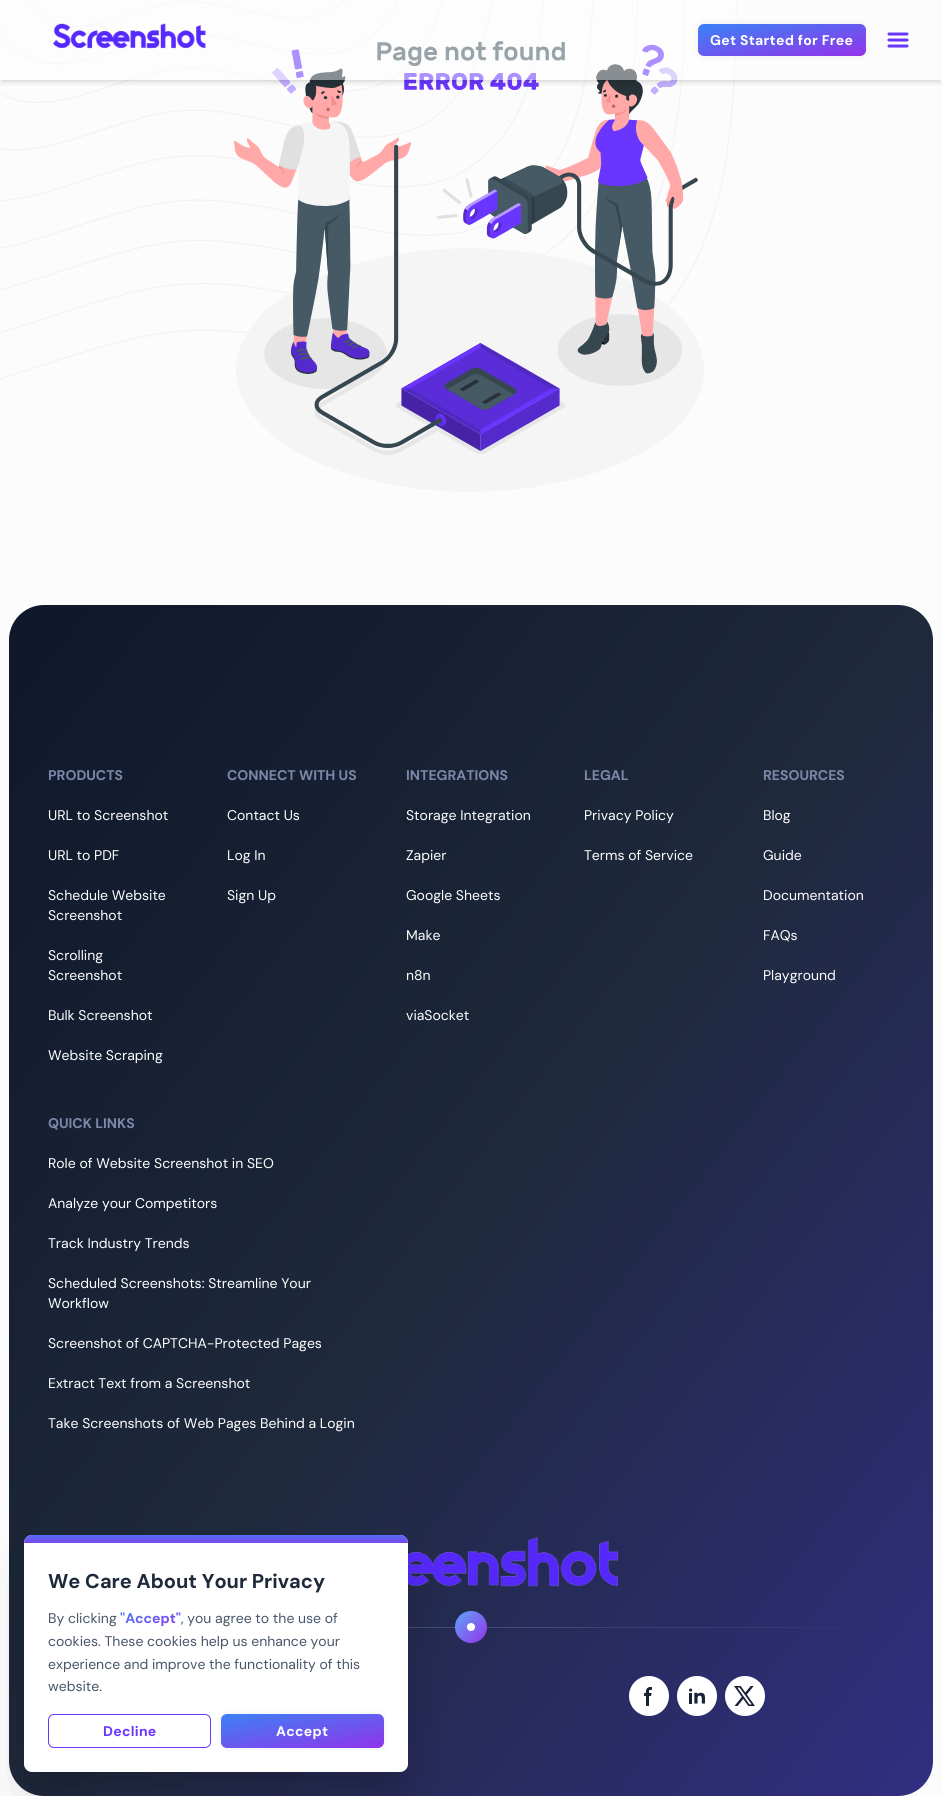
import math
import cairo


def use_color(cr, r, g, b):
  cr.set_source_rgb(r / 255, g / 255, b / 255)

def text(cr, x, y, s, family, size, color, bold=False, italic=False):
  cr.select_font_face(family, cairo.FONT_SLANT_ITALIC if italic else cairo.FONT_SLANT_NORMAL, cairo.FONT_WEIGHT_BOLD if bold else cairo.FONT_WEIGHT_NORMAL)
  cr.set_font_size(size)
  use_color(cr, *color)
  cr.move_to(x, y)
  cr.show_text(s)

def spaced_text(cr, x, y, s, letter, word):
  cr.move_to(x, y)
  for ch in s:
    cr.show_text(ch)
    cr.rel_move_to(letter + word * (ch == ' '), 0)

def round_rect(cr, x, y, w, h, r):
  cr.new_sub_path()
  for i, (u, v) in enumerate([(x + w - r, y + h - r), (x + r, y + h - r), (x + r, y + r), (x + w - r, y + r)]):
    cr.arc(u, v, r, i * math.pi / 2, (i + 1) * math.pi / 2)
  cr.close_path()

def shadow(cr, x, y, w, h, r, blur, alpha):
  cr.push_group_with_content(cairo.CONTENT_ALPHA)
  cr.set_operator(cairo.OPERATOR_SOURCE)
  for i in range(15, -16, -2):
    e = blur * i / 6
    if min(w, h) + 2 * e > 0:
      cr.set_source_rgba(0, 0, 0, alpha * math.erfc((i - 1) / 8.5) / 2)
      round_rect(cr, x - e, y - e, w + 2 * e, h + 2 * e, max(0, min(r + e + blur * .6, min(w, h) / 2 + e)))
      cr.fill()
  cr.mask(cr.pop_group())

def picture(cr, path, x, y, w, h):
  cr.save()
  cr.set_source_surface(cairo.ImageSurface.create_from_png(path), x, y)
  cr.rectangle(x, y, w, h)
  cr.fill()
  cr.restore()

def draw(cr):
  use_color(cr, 252, 252, 252)
  cr.paint()
  picture(cr, "img_01.png", 0, 0, 737, 380)
  picture(cr, "img_02.png", 233, 41, 471, 451)
  cr.save()
  cr.rectangle(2, 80, 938, 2)
  cr.clip()
  use_color(cr, 0, 0, 0)
  shadow(cr, 2, 4, 938, 76, 0, 2, 0.1)
  cr.restore()
  cr.save()
  cr.rectangle(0, 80, 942, 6)
  cr.clip()
  use_color(cr, 0, 0, 0)
  shadow(cr, 1, 5, 940, 78, 0, 3, 0.1)
  cr.restore()
  cr.set_source_rgba(1, 1, 1, 0.45)
  cr.rectangle(0, 0, 737, 80)
  cr.fill()
  picture(cr, "img_03.png", 52, 23, 154, 26)
  use_color(cr, 0, 0, 0)
  shadow(cr, 696, 22, 172, 36, 8, 2.5, 0.04)
  gradient = cairo.LinearGradient(776, 9, 788, 71)
  gradient.add_color_stop_rgba(0, 0.231, 0.51, 0.965, 1)
  gradient.add_color_stop_rgba(1, 0.576, 0.2, 0.918, 1)
  cr.set_source(gradient)
  round_rect(cr, 698, 24, 168, 32, 6)
  cr.fill()
  picture(cr, "img_04.png", 887, 32, 22, 16)
  gradient = cairo.LinearGradient(-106, 753, 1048, 1648)
  gradient.add_color_stop_rgba(0, 0.059, 0.09, 0.165, 1)
  gradient.add_color_stop_rgba(0.5, 0.118, 0.161, 0.231, 1)
  gradient.add_color_stop_rgba(1, 0.192, 0.18, 0.506, 1)
  cr.set_source(gradient)
  round_rect(cr, 9, 605, 924, 1191, 35)
  cr.fill()
  picture(cr, "img_05.png", 408, 1537, 211, 50)
  gradient = cairo.LinearGradient(33, 1628, 909, 1628)
  gradient.add_color_stop_rgba(0, 0.58, 0.639, 0.722, 0)
  gradient.add_color_stop_rgba(0.5, 0.58, 0.639, 0.722, 0.3)
  gradient.add_color_stop_rgba(1, 0.58, 0.639, 0.722, 0)
  cr.set_source(gradient)
  cr.rectangle(408, 1627, 470, 1)
  cr.fill()
  gradient = cairo.LinearGradient(455, 1611, 487, 1643)
  gradient.add_color_stop_rgba(0, 0.376, 0.647, 0.98, 1)
  gradient.add_color_stop_rgba(1, 0.576, 0.2, 0.918, 1)
  cr.set_source(gradient)
  cr.arc(471, 1627, 16, 0, 2 * math.pi)
  cr.fill()
  use_color(cr, 255, 255, 255)
  cr.arc(471, 1627, 4, 0, 2 * math.pi)
  cr.fill()
  cr.arc(649, 1696, 20, 0, 2 * math.pi)
  cr.fill()
  picture(cr, "img_06.png", 644, 1687, 8, 19)
  cr.arc(697, 1696, 20, 0, 2 * math.pi)
  cr.fill()
  picture(cr, "img_07.png", 689, 1688, 16, 16)
  cr.arc(745, 1696, 20, 0, 2 * math.pi)
  cr.fill()
  picture(cr, "img_08.png", 734, 1686, 21, 20)
  use_color(cr, 0, 0, 0)
  shadow(cr, 36, 1572, 360, 213, 0, 25, 0.25)
  use_color(cr, 255, 255, 255)
  round_rect(cr, 24, 1535, 384, 237, 8)
  cr.fill()
  gradient = cairo.LinearGradient(216, 1531, 216, 1547)
  gradient.add_color_stop_rgba(0, 0.231, 0.51, 0.965, 1)
  gradient.add_color_stop_rgba(1, 0.576, 0.2, 0.918, 1)
  cr.set_source(gradient)
  cr.new_path()
  cr.move_to(32, 1535)
  cr.line_to(400, 1535)
  cr.curve_to(404.5, 1535, 408, 1538.5, 408, 1543)
  cr.line_to(24, 1543)
  cr.curve_to(24, 1538.5, 27.5, 1535, 32, 1535)
  cr.close_path()
  cr.fill()
  round_rect(cr, 48.5, 1714.5, 162, 33, 5.5)
  use_color(cr, 106, 53, 255)
  cr.set_line_width(1)
  cr.stroke()
  use_color(cr, 0, 0, 0)
  shadow(cr, 219, 1712, 167, 38, 8, 2.5, 0.04)
  gradient = cairo.LinearGradient(296, 1698, 309, 1764)
  gradient.add_color_stop_rgba(0, 0.231, 0.51, 0.965, 1)
  gradient.add_color_stop_rgba(1, 0.576, 0.2, 0.918, 1)
  cr.set_source(gradient)
  round_rect(cr, 221, 1714, 163, 34, 6)
  cr.fill()
  cr.select_font_face("DM Sans", cairo.FONT_SLANT_NORMAL, cairo.FONT_WEIGHT_BOLD)
  cr.set_font_size(14)
  use_color(cr, 255, 255, 255)
  spaced_text(cr, 710, 45, "Get Started for Free", 0.3, 0)
  text(cr, 48, 780, "PRODUCTS", "DM Sans", 14, (123, 136, 168), bold=True)
  text(cr, 48, 820, "URL to Screenshot", "DM Sans", 14, (255, 255, 255))
  text(cr, 48, 860, "URL to PDF", "DM Sans", 14, (255, 255, 255))
  text(cr, 48, 900, "Schedule Website", "DM Sans", 14, (255, 255, 255))
  text(cr, 48, 920, "Screenshot", "DM Sans", 14, (255, 255, 255))
  text(cr, 48, 960, "Scrolling", "DM Sans", 14, (255, 255, 255))
  text(cr, 48, 980, "Screenshot", "DM Sans", 14, (255, 255, 255))
  text(cr, 48, 1020, "Bulk Screenshot", "DM Sans", 14, (255, 255, 255))
  text(cr, 48, 1060, "Website Scraping", "DM Sans", 14, (255, 255, 255))
  text(cr, 227, 780, "CONNECT WITH US", "DM Sans", 14, (123, 136, 168), bold=True)
  text(cr, 227, 820, "Contact Us", "DM Sans", 14, (255, 255, 255))
  text(cr, 227, 860, "Log In", "DM Sans", 14, (255, 255, 255))
  text(cr, 227, 900, "Sign Up", "DM Sans", 14, (255, 255, 255))
  text(cr, 406, 780, "INTEGRATIONS", "DM Sans", 14, (123, 136, 168), bold=True)
  text(cr, 406, 820, "Storage Integration", "DM Sans", 14, (255, 255, 255))
  text(cr, 406, 860, "Zapier", "DM Sans", 14, (255, 255, 255))
  text(cr, 406, 900, "Google Sheets", "DM Sans", 14, (255, 255, 255))
  text(cr, 406, 940, "Make", "DM Sans", 14, (255, 255, 255))
  text(cr, 406, 980, "n8n", "DM Sans", 14, (255, 255, 255))
  text(cr, 406, 1020, "viaSocket", "DM Sans", 14, (255, 255, 255))
  text(cr, 584, 780, "LEGAL", "DM Sans", 14, (123, 136, 168), bold=True)
  text(cr, 584, 820, "Privacy Policy", "DM Sans", 14, (255, 255, 255))
  text(cr, 584, 860, "Terms of Service", "DM Sans", 14, (255, 255, 255))
  text(cr, 763, 780, "RESOURCES", "DM Sans", 14, (123, 136, 168), bold=True)
  text(cr, 763, 820, "Blog", "DM Sans", 14, (255, 255, 255))
  text(cr, 763, 860, "Guide", "DM Sans", 14, (255, 255, 255))
  text(cr, 763, 900, "Documentation", "DM Sans", 14, (255, 255, 255))
  text(cr, 763, 940, "FAQs", "DM Sans", 14, (255, 255, 255))
  text(cr, 763, 980, "Playground", "DM Sans", 14, (255, 255, 255))
  text(cr, 48, 1128, "QUICK LINKS", "DM Sans", 14, (123, 136, 168), bold=True)
  text(cr, 48, 1168, "Role of Website Screenshot in SEO", "DM Sans", 14, (255, 255, 255))
  text(cr, 48, 1208, "Analyze your Competitors", "DM Sans", 14, (255, 255, 255))
  text(cr, 48, 1248, "Track Industry Trends", "DM Sans", 14, (255, 255, 255))
  text(cr, 48, 1288, "Scheduled Screenshots: Streamline Your", "DM Sans", 14, (255, 255, 255))
  text(cr, 48, 1308, "Workflow", "DM Sans", 14, (255, 255, 255))
  text(cr, 48, 1348, "Screenshot of CAPTCHA-Protected Pages", "DM Sans", 14, (255, 255, 255))
  text(cr, 48, 1388, "Extract Text from a Screenshot", "DM Sans", 14, (255, 255, 255))
  text(cr, 48, 1428, "Take Screenshots of Web Pages Behind a Login", "DM Sans", 14, (255, 255, 255))
  text(cr, 48, 1588, "We Care About Your Privacy", "DM Sans", 20, (30, 41, 59), bold=True)
  text(cr, 48, 1623, "By clicking", "DM Sans", 14, (71, 85, 105))
  cr.select_font_face("DM Sans", cairo.FONT_SLANT_NORMAL, cairo.FONT_WEIGHT_BOLD)
  gradient = cairo.LinearGradient(146, 1601, 156, 1635)
  gradient.add_color_stop_rgba(0, 0.231, 0.51, 0.965, 1)
  gradient.add_color_stop_rgba(1, 0.576, 0.2, 0.918, 1)
  cr.set_source(gradient)
  cr.move_to(120, 1623)
  cr.show_text("\"Accept\"")
  text(cr, 181, 1623, ", you agree to the use of", "DM Sans", 14, (71, 85, 105))
  text(cr, 48, 1646, "cookies. These cookies help us enhance your", "DM Sans", 14, (71, 85, 105))
  text(cr, 48, 1669, "experience and improve the functionality of this", "DM Sans", 14, (71, 85, 105))
  text(cr, 48, 1691, "website.", "DM Sans", 14, (71, 85, 105))
  cr.select_font_face("DM Sans", cairo.FONT_SLANT_NORMAL, cairo.FONT_WEIGHT_BOLD)
  use_color(cr, 106, 53, 255)
  spaced_text(cr, 103, 1736, "Decline", 0.3, 0)
  use_color(cr, 255, 255, 255)
  spaced_text(cr, 276, 1736, "Accept", 0.3, 0)


surface = cairo.ImageSurface(cairo.FORMAT_RGB24, 942, 1796)
cr = cairo.Context(surface)
options = cairo.FontOptions()
options.set_hint_metrics(cairo.HINT_METRICS_OFF)
options.set_hint_style(cairo.HINT_STYLE_NONE)
cr.set_font_options(options)
cr.set_miter_limit(4)
draw(cr)
surface.write_to_png("out.png")
